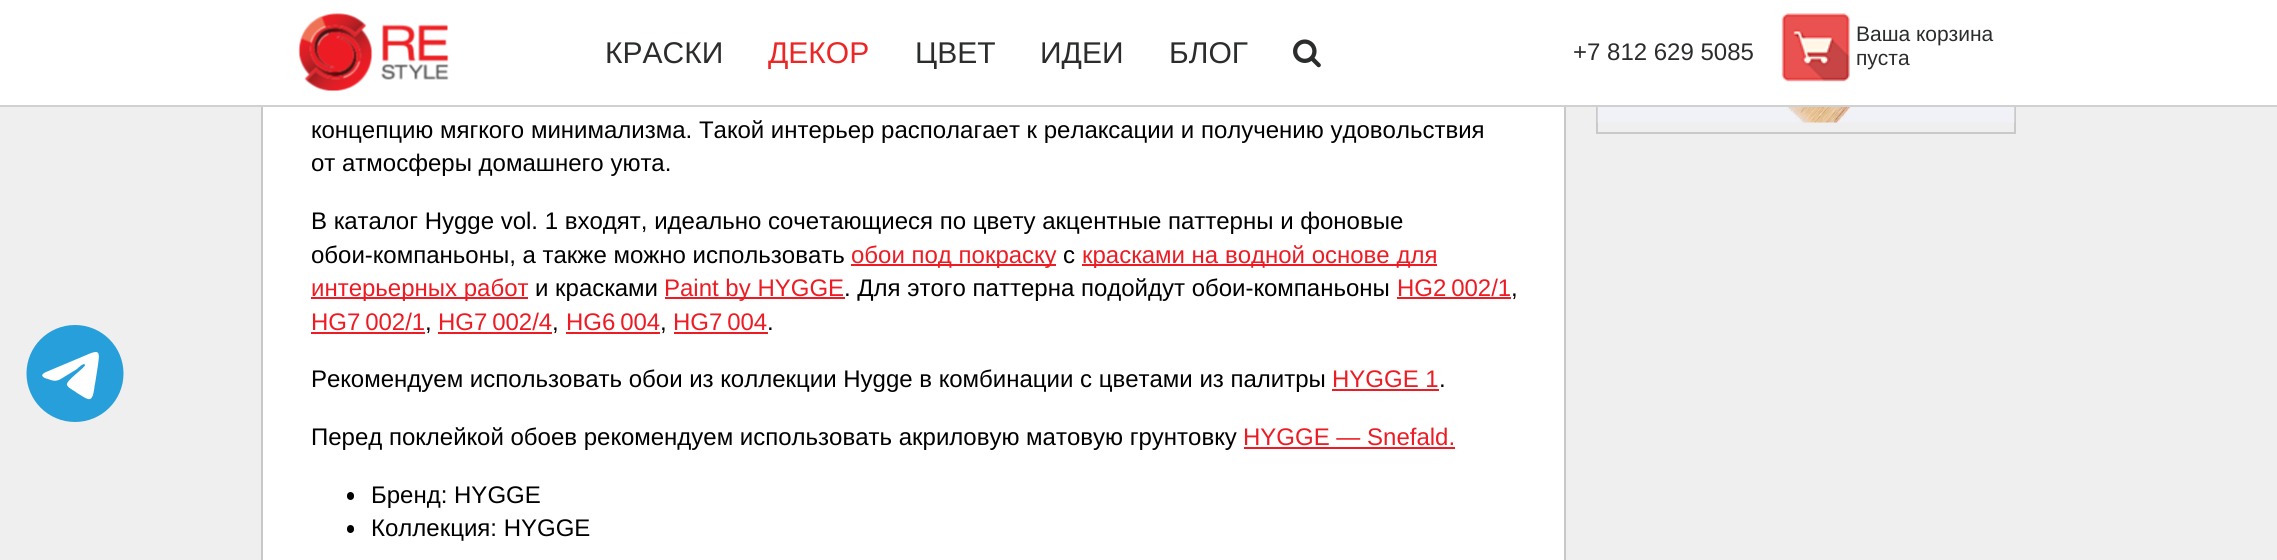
import math
import cairo


def use_color(cr, r, g, b):
  cr.set_source_rgb(r / 255, g / 255, b / 255)

def text(cr, x, y, s, family, size, color, bold=False, italic=False):
  cr.select_font_face(family, cairo.FONT_SLANT_ITALIC if italic else cairo.FONT_SLANT_NORMAL, cairo.FONT_WEIGHT_BOLD if bold else cairo.FONT_WEIGHT_NORMAL)
  cr.set_font_size(size)
  use_color(cr, *color)
  cr.move_to(x, y)
  cr.show_text(s)

def box(cr, x, y, w, h, *color):
  use_color(cr, *color)
  cr.rectangle(x, y, w, h)
  cr.fill()

def round_rect(cr, x, y, w, h, r):
  cr.new_sub_path()
  for i, (u, v) in enumerate([(x + w - r, y + h - r), (x + r, y + h - r), (x + r, y + r), (x + w - r, y + r)]):
    cr.arc(u, v, r, i * math.pi / 2, (i + 1) * math.pi / 2)
  cr.close_path()

def picture(cr, path, x, y, w, h):
  cr.save()
  cr.set_source_surface(cairo.ImageSurface.create_from_png(path), x, y)
  cr.rectangle(x, y, w, h)
  cr.fill()
  cr.restore()

def draw(cr):
  use_color(cr, 239, 239, 239)
  cr.paint()
  cr.rectangle(1597, -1, 418, 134)
  use_color(cr, 201, 201, 201)
  cr.stroke()
  box(cr, 263, 107, 1301, 453, 255, 255, 255)
  cr.rectangle(262, -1, 1303, 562)
  use_color(cr, 200, 200, 200)
  cr.stroke()
  box(cr, 0, 0, 2277, 105, 255, 255, 255)
  box(cr, 0, 105, 2277, 2, 208, 208, 208)
  picture(cr, "img_01.png", 298, 13, 151, 79)
  picture(cr, "img_02.png", 1293, 39, 28, 29)
  picture(cr, "img_03.png", 1781, 13, 69, 69)
  use_color(cr, 39, 159, 218)
  cr.arc(75, 373.5, 48.5, 0, 2 * math.pi)
  cr.fill()
  use_color(cr, 255, 255, 255)
  cr.new_path()
  cr.move_to(46, 372)
  cr.line_to(84, 356)
  cr.curve_to(87, 355, 92, 352, 96, 352)
  cr.curve_to(101, 352, 98, 362, 98, 365)
  cr.line_to(95, 384)
  cr.curve_to(94, 387, 94, 401, 88, 399)
  cr.curve_to(84, 398, 81, 395, 77, 393)
  cr.curve_to(75, 391, 68, 388, 67, 385)
  cr.curve_to(65, 381, 86, 367, 85, 365)
  cr.curve_to(84, 362, 78, 368, 77, 369)
  cr.line_to(64, 377)
  cr.curve_to(58, 381, 55, 382, 48, 379)
  cr.curve_to(43, 378, 39, 375, 46, 372)
  cr.close_path()
  cr.fill()
  picture(cr, "img_04.png", 1597, 107, 418, 16)
  box(cr, 851, 264, 205, 2, 237, 28, 36)
  box(cr, 1082, 264, 355, 2, 237, 28, 36)
  box(cr, 311, 297, 217, 2, 237, 28, 36)
  box(cr, 665, 297, 180, 2, 237, 28, 36)
  box(cr, 1397, 297, 114, 2, 237, 28, 36)
  box(cr, 311, 332, 114, 2, 237, 28, 36)
  box(cr, 438, 332, 114, 2, 237, 28, 36)
  box(cr, 566, 332, 94, 2, 237, 28, 36)
  box(cr, 674, 332, 94, 2, 237, 28, 36)
  box(cr, 1332, 389, 107, 2, 237, 28, 36)
  box(cr, 1244, 447, 211, 2, 237, 28, 36)
  use_color(cr, 0, 0, 0)
  round_rect(cr, 347, 492, 7, 8, 3.5)
  cr.fill()
  round_rect(cr, 347, 525, 7, 8, 3.5)
  cr.fill()
  text(cr, 605, 63, "КРАСКИ", "Liberation Sans", 30, (43, 45, 45))
  text(cr, 768, 63, "ДЕКОР", "Liberation Sans", 30, (236, 37, 37))
  text(cr, 915, 63, "ЦВЕТ", "Liberation Sans", 30, (43, 45, 45))
  text(cr, 1040, 63, "ИДЕИ", "Liberation Sans", 30, (43, 45, 45))
  text(cr, 1169, 63, "БЛОГ", "Liberation Sans", 30, (43, 45, 45))
  text(cr, 1573, 60, "+7 812 629 5085", "Liberation Sans", 24, (43, 45, 45))
  text(cr, 1856, 41, "Ваша корзина", "Liberation Sans", 21, (43, 45, 45))
  text(cr, 1856, 65, "пуста", "Liberation Sans", 21, (43, 45, 45))
  text(cr, 311, 138, "концепцию мягкого минимализма. Такой интерьер располагает к релаксации и получению удовольствия", "Liberation Sans", 24, (0, 0, 0))
  text(cr, 311, 171, "от атмосферы домашнего уюта.", "Liberation Sans", 24, (0, 0, 0))
  text(cr, 311, 229, "В каталог Hygge vol. 1 входят, идеально сочетающиеся по цвету акцентные паттерны и фоновые", "Liberation Sans", 24, (0, 0, 0))
  text(cr, 311, 263, "обои-компаньоны, а также можно использовать", "Liberation Sans", 24, (0, 0, 0))
  text(cr, 851, 263, "обои под покраску", "Liberation Sans", 24, (237, 28, 36))
  text(cr, 1063, 263, "с", "Liberation Sans", 24, (0, 0, 0))
  text(cr, 1082, 263, "красками на водной основе для", "Liberation Sans", 24, (237, 28, 36))
  text(cr, 311, 296, "интерьерных работ", "Liberation Sans", 24, (237, 28, 36))
  text(cr, 535, 296, "и красками", "Liberation Sans", 24, (0, 0, 0))
  text(cr, 664, 296, "Paint by HYGGE", "Liberation Sans", 24, (237, 28, 36))
  text(cr, 844, 296, ". Для этого паттерна подойдут обои-компаньоны", "Liberation Sans", 24, (0, 0, 0))
  text(cr, 1397, 296, "HG2 002/1", "Liberation Sans", 24, (237, 28, 36))
  text(cr, 1511, 296, ",", "Liberation Sans", 24, (0, 0, 0))
  text(cr, 311, 330, "HG7 002/1", "Liberation Sans", 24, (237, 28, 36))
  text(cr, 425, 330, ",", "Liberation Sans", 24, (0, 0, 0))
  text(cr, 438, 330, "HG7 002/4", "Liberation Sans", 24, (237, 28, 36))
  text(cr, 552, 330, ",", "Liberation Sans", 24, (0, 0, 0))
  text(cr, 566, 330, "HG6 004", "Liberation Sans", 24, (237, 28, 36))
  text(cr, 660, 330, ",", "Liberation Sans", 24, (0, 0, 0))
  text(cr, 673, 330, "HG7 004", "Liberation Sans", 24, (237, 28, 36))
  text(cr, 767, 330, ".", "Liberation Sans", 24, (0, 0, 0))
  text(cr, 311, 387, "Рекомендуем использовать обои из коллекции Hygge в комбинации с цветами из палитры", "Liberation Sans", 24, (0, 0, 0))
  text(cr, 1332, 387, "HYGGE 1", "Liberation Sans", 24, (237, 28, 36))
  text(cr, 1439, 387, ".", "Liberation Sans", 24, (0, 0, 0))
  text(cr, 311, 445, "Перед поклейкой обоев рекомендуем использовать акриловую матовую грунтовку", "Liberation Sans", 24, (0, 0, 0))
  text(cr, 1243, 445, "HYGGE — Snefald.", "Liberation Sans", 24, (237, 28, 36))
  text(cr, 371, 503, "Бренд: HYGGE", "Liberation Sans", 24, (0, 0, 0))
  text(cr, 371, 536, "Коллекция: HYGGE", "Liberation Sans", 24, (0, 0, 0))


surface = cairo.ImageSurface(cairo.FORMAT_RGB24, 2277, 560)
cr = cairo.Context(surface)
options = cairo.FontOptions()
options.set_hint_metrics(cairo.HINT_METRICS_OFF)
options.set_hint_style(cairo.HINT_STYLE_NONE)
cr.set_font_options(options)
cr.set_miter_limit(4)
draw(cr)
surface.write_to_png("out.png")
